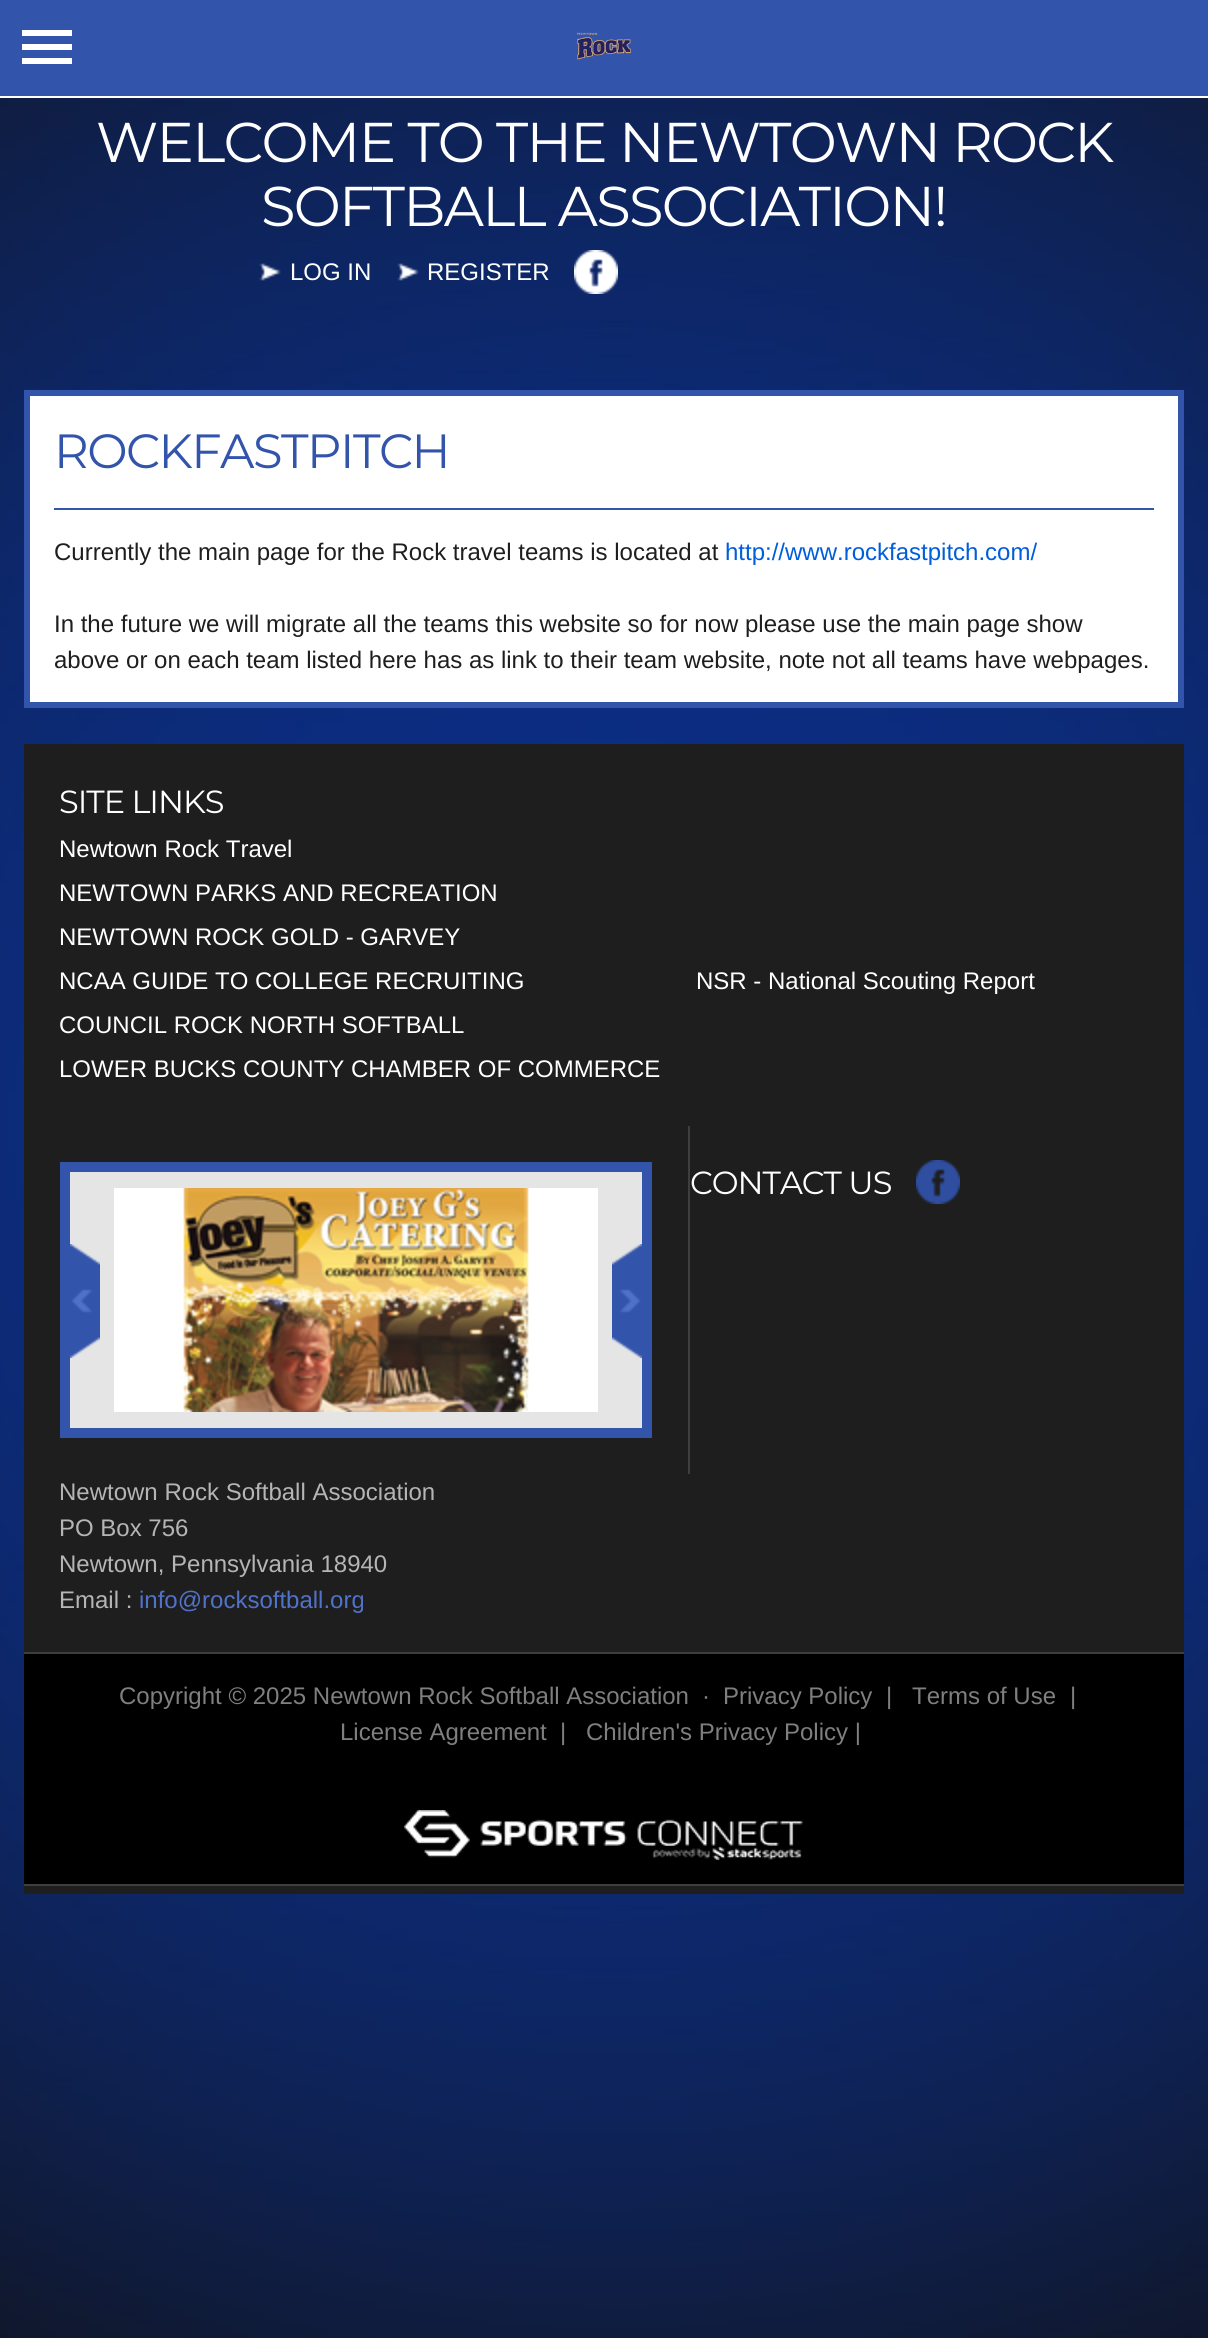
import math
import cairo


def use_color(cr, r, g, b):
  cr.set_source_rgb(r / 255, g / 255, b / 255)

def text(cr, x, y, s, family, size, color, bold=False, italic=False):
  cr.select_font_face(family, cairo.FONT_SLANT_ITALIC if italic else cairo.FONT_SLANT_NORMAL, cairo.FONT_WEIGHT_BOLD if bold else cairo.FONT_WEIGHT_NORMAL)
  cr.set_font_size(size)
  use_color(cr, *color)
  cr.move_to(x, y)
  cr.show_text(s)

def spaced_text(cr, x, y, s, letter, word):
  cr.move_to(x, y)
  for ch in s:
    cr.show_text(ch)
    cr.rel_move_to(letter + word * (ch == ' '), 0)

def box(cr, x, y, w, h, *color):
  use_color(cr, *color)
  cr.rectangle(x, y, w, h)
  cr.fill()

def picture(cr, path, x, y, w, h):
  cr.save()
  cr.set_source_surface(cairo.ImageSurface.create_from_png(path), x, y)
  cr.rectangle(x, y, w, h)
  cr.fill()
  cr.restore()

def draw(cr):
  use_color(cr, 255, 255, 255)
  cr.paint()
  box(cr, 0, 0, 1208, 96, 50, 84, 171)
  use_color(cr, 255, 255, 255)
  cr.new_path()
  cr.move_to(22, 30)
  cr.line_to(72, 30)
  cr.line_to(72, 36)
  cr.line_to(22, 36)
  cr.close_path()
  cr.move_to(22, 44)
  cr.line_to(72, 44)
  cr.line_to(72, 50)
  cr.line_to(22, 50)
  cr.close_path()
  cr.move_to(22, 58)
  cr.line_to(72, 58)
  cr.line_to(72, 64)
  cr.line_to(22, 64)
  cr.close_path()
  cr.fill()
  picture(cr, "img_01.png", 577, 32, 54, 28)
  picture(cr, "img_02.png", 0, 98, 1208, 2240)
  picture(cr, "img_03.png", 259, 263, 22, 18)
  picture(cr, "img_04.png", 397, 263, 22, 18)
  picture(cr, "img_05.png", 574, 250, 44, 44)
  cr.rectangle(27, 393, 1154, 312)
  cr.fill_preserve()
  use_color(cr, 50, 84, 171)
  cr.set_line_width(6)
  cr.stroke()
  box(cr, 54, 508, 1100, 2, 50, 84, 171)
  box(cr, 24, 744, 1160, 1150, 30, 30, 30)
  box(cr, 688, 1126, 2, 348, 62, 62, 62)
  use_color(cr, 229, 229, 229)
  cr.rectangle(65, 1167, 582, 266)
  cr.fill_preserve()
  use_color(cr, 50, 84, 171)
  cr.set_line_width(10)
  cr.stroke()
  picture(cr, "img_06.png", 70, 1244, 30, 114)
  box(cr, 114, 1188, 484, 224, 255, 255, 255)
  picture(cr, "img_07.png", 183, 1188, 346, 224)
  picture(cr, "img_08.png", 612, 1244, 30, 114)
  picture(cr, "img_09.png", 916, 1160, 44, 44)
  box(cr, 24, 1654, 1160, 230, 0, 0, 0)
  box(cr, 24, 1652, 1160, 2, 62, 62, 62)
  box(cr, 24, 1884, 1160, 2, 62, 62, 62)
  picture(cr, "img_10.png", 404, 1810, 399, 50)
  cr.select_font_face("Montserrat")
  cr.set_font_size(56)
  use_color(cr, 255, 255, 255)
  spaced_text(cr, 96, 162, "WELCOME TO THE NEWTOWN ROCK", -1.7, 0)
  spaced_text(cr, 261, 226, "SOFTBALL ASSOCIATION!", -1.7, 0)
  text(cr, 290, 280, "LOG IN", "Liberation Sans", 24, (255, 255, 255))
  text(cr, 427, 280, "REGISTER", "Liberation Sans", 24, (255, 255, 255))
  cr.select_font_face("Montserrat")
  cr.set_font_size(48)
  use_color(cr, 50, 84, 171)
  spaced_text(cr, 54, 468, "ROCKFASTPITCH", -1.5, 0)
  text(cr, 54, 560, "Currently the main page for the Rock travel teams is located at", "Liberation Sans", 24, (30, 30, 30))
  text(cr, 725, 560, "http://www.rockfastpitch.com/", "Liberation Sans", 24, (0, 93, 219))
  text(cr, 54, 632, "In the future we will migrate all the teams this website so for now please use the main page show", "Liberation Sans", 24, (30, 30, 30))
  text(cr, 54, 668, "above or on each team listed here has as link to their team website, note not all teams have webpages.", "Liberation Sans", 24, (30, 30, 30))
  cr.select_font_face("Montserrat")
  cr.set_font_size(32)
  use_color(cr, 255, 255, 255)
  spaced_text(cr, 59, 813, "SITE LINKS", -1, 0)
  text(cr, 59, 857, "Newtown Rock Travel", "Liberation Sans", 24, (255, 255, 255))
  text(cr, 59, 901, "NEWTOWN PARKS AND RECREATION", "Liberation Sans", 24, (255, 255, 255))
  text(cr, 59, 945, "NEWTOWN ROCK GOLD - GARVEY", "Liberation Sans", 24, (255, 255, 255))
  text(cr, 59, 989, "NCAA GUIDE TO COLLEGE RECRUITING", "Liberation Sans", 24, (255, 255, 255))
  text(cr, 59, 1033, "COUNCIL ROCK NORTH SOFTBALL", "Liberation Sans", 24, (255, 255, 255))
  text(cr, 59, 1077, "LOWER BUCKS COUNTY CHAMBER OF COMMERCE", "Liberation Sans", 24, (255, 255, 255))
  text(cr, 696, 989, "NSR - National Scouting Report", "Liberation Sans", 24, (255, 255, 255))
  cr.select_font_face("Montserrat")
  cr.set_font_size(32)
  spaced_text(cr, 690, 1194, "CONTACT US", -1, 0)
  text(cr, 59, 1500, "Newtown Rock Softball Association", "Liberation Sans", 24, (181, 181, 181))
  text(cr, 59, 1536, "PO Box 756", "Liberation Sans", 24, (181, 181, 181))
  text(cr, 59, 1572, "Newtown, Pennsylvania 18940", "Liberation Sans", 24, (181, 181, 181))
  text(cr, 59, 1608, "Email :", "Liberation Sans", 24, (181, 181, 181))
  text(cr, 139, 1608, "info@rocksoftball.org", "Liberation Sans", 24, (80, 114, 201))
  text(cr, 119, 1704, "Copyright © 2025 Newtown Rock Softball Association", "Liberation Sans", 24, (127, 127, 127))
  text(cr, 702, 1704, "·", "Liberation Sans", 24, (127, 127, 127))
  text(cr, 723, 1704, "Privacy Policy", "Liberation Sans", 24, (127, 127, 127))
  text(cr, 886, 1704, "|", "Liberation Sans", 24, (127, 127, 127))
  text(cr, 912, 1704, "Terms of Use", "Liberation Sans", 24, (127, 127, 127))
  text(cr, 1070, 1704, "|", "Liberation Sans", 24, (127, 127, 127))
  text(cr, 340, 1740, "License Agreement", "Liberation Sans", 24, (127, 127, 127))
  text(cr, 560, 1740, "|", "Liberation Sans", 24, (127, 127, 127))
  text(cr, 586, 1740, "Children's Privacy Policy |", "Liberation Sans", 24, (127, 127, 127))


surface = cairo.ImageSurface(cairo.FORMAT_RGB24, 1208, 2338)
cr = cairo.Context(surface)
options = cairo.FontOptions()
options.set_hint_metrics(cairo.HINT_METRICS_OFF)
options.set_hint_style(cairo.HINT_STYLE_NONE)
cr.set_font_options(options)
cr.set_miter_limit(4)
draw(cr)
surface.write_to_png("out.png")
